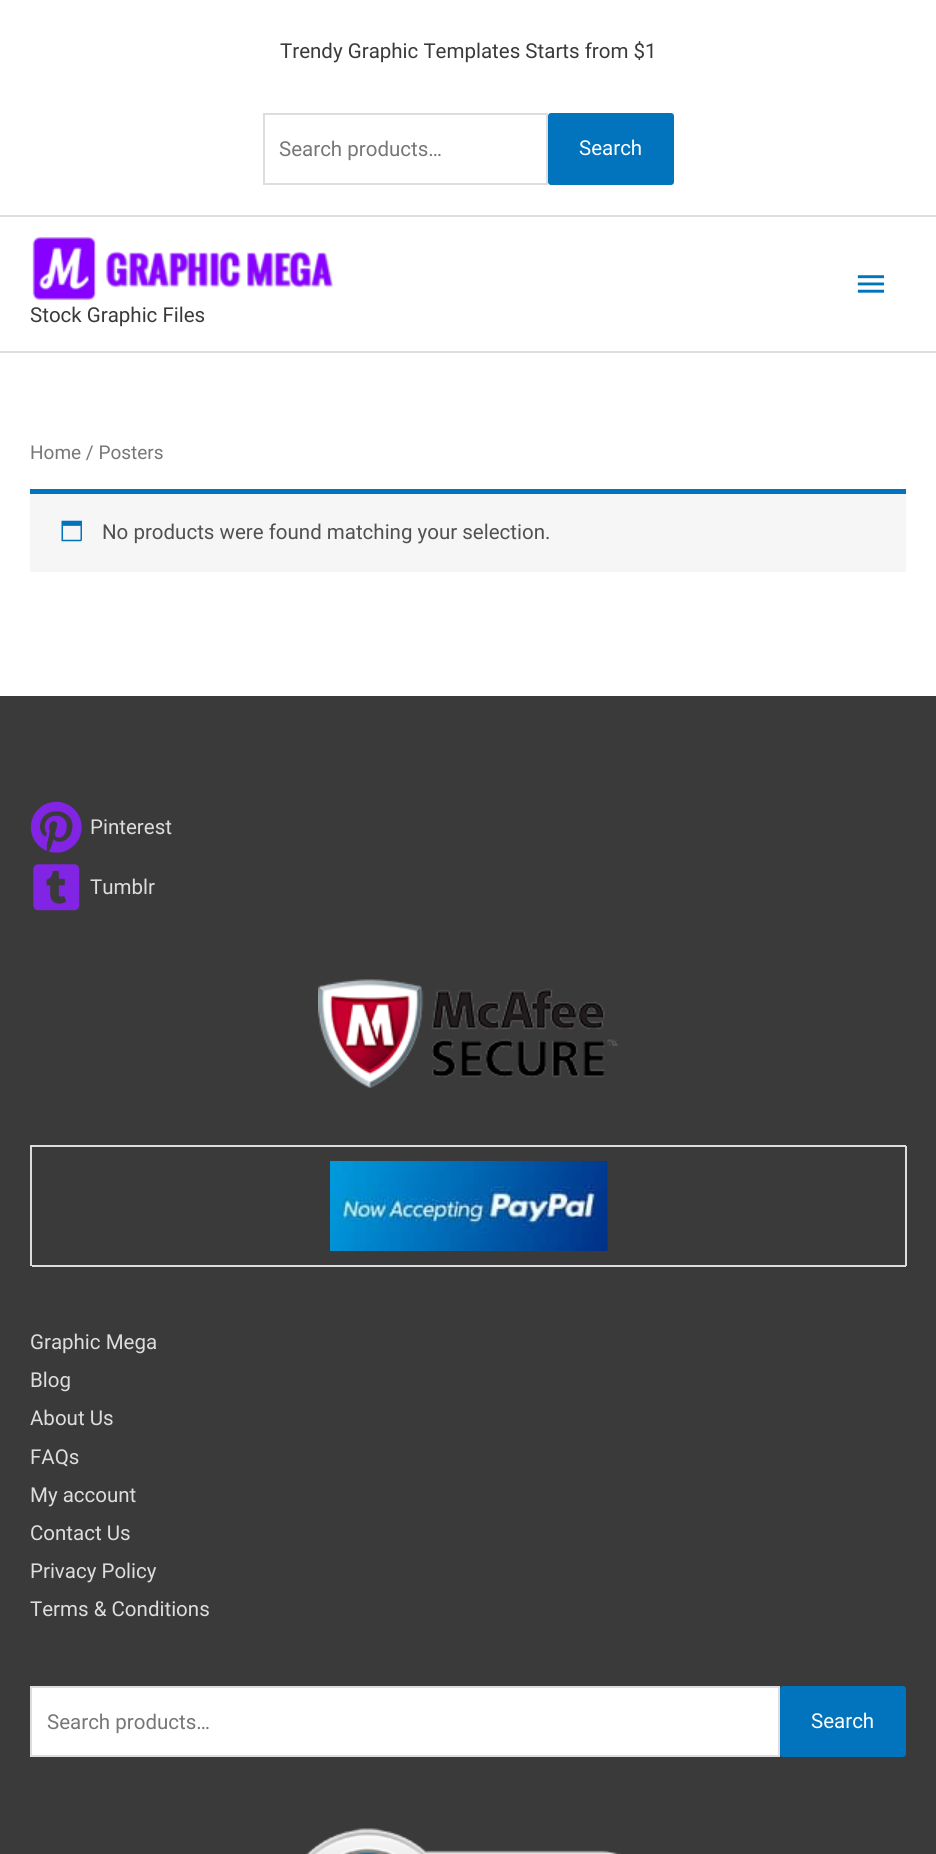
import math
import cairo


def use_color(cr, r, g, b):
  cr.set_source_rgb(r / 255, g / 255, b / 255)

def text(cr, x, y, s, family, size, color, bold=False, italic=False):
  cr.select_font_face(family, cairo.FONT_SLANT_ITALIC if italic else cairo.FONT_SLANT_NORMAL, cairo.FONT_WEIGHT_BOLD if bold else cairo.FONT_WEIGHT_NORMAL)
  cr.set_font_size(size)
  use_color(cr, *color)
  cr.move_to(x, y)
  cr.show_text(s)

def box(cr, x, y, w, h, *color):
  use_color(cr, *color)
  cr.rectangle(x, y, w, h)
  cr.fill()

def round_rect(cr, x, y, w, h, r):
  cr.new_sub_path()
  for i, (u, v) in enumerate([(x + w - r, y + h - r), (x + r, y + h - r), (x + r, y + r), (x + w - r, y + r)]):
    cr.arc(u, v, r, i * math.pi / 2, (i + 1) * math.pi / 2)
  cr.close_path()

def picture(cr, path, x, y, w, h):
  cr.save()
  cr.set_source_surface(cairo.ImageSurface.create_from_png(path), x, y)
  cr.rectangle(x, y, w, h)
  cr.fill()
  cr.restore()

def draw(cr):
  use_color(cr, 255, 255, 255)
  cr.paint()
  box(cr, 0, 215, 936, 2, 221, 221, 221)
  cr.rectangle(264, 114, 283, 70)
  cr.stroke()
  use_color(cr, 2, 116, 190)
  round_rect(cr, 549, 114, 124, 70, 2)
  cr.fill_preserve()
  cr.stroke()
  box(cr, 0, 351, 936, 2, 221, 221, 221)
  picture(cr, "img_01.png", 857, 275, 28, 18)
  picture(cr, "img_02.png", 32, 237, 302, 63)
  box(cr, 30, 494, 876, 78, 247, 246, 247)
  box(cr, 30, 489, 876, 5, 2, 116, 190)
  picture(cr, "img_03.png", 61, 520, 21, 22)
  box(cr, 0, 696, 936, 1158, 58, 58, 58)
  picture(cr, "img_04.png", 30, 801, 52, 52)
  picture(cr, "img_05.png", 33, 864, 47, 47)
  picture(cr, "img_06.png", 318, 979, 300, 109)
  box(cr, 30, 1145, 876, 2, 221, 221, 221)
  box(cr, 30, 1145, 2, 121, 221, 221, 221)
  box(cr, 905, 1146, 2, 120, 221, 221, 221)
  box(cr, 32, 1265, 874, 2, 221, 221, 221)
  picture(cr, "img_07.png", 330, 1161, 278, 90)
  use_color(cr, 255, 255, 255)
  cr.rectangle(31, 1687, 748, 69)
  cr.fill_preserve()
  use_color(cr, 221, 221, 221)
  cr.stroke()
  use_color(cr, 2, 116, 190)
  round_rect(cr, 781, 1687, 124, 69, 2)
  cr.fill_preserve()
  cr.stroke()
  picture(cr, "img_08.png", 306, 1828, 315, 26)
  text(cr, 280, 58, "Trendy Graphic Templates Starts from $1", "Roboto", 20.5, (58, 58, 58))
  text(cr, 279, 156, "Search products…", "Roboto", 20.5, (119, 119, 119))
  text(cr, 579, 155, "Search", "Roboto", 20.5, (255, 255, 255))
  text(cr, 30, 322, "Stock Graphic Files", "Roboto", 20.5, (58, 58, 58))
  text(cr, 30, 459, "Home / Posters", "Roboto", 19, (119, 119, 119))
  text(cr, 102, 539, "No products were found matching your selection.", "Roboto", 20.5, (81, 81, 81))
  text(cr, 90, 834, "Pinterest", "Roboto", 20.5, (221, 221, 221))
  text(cr, 90, 894, "Tumblr", "Roboto", 20.5, (221, 221, 221))
  text(cr, 30, 1349, "Graphic Mega", "Roboto", 20.5, (221, 221, 221))
  text(cr, 30, 1387, "Blog", "Roboto", 20.5, (221, 221, 221))
  text(cr, 30, 1425, "About Us", "Roboto", 20.5, (221, 221, 221))
  text(cr, 30, 1464, "FAQs", "Roboto", 20.5, (221, 221, 221))
  text(cr, 30, 1502, "My account", "Roboto", 20.5, (221, 221, 221))
  text(cr, 30, 1540, "Contact Us", "Roboto", 20.5, (221, 221, 221))
  text(cr, 30, 1578, "Privacy Policy", "Roboto", 20.5, (221, 221, 221))
  text(cr, 30, 1616, "Terms & Conditions", "Roboto", 20.5, (221, 221, 221))
  text(cr, 47, 1729, "Search products…", "Roboto", 20.5, (119, 119, 119))
  text(cr, 811, 1728, "Search", "Roboto", 20.5, (255, 255, 255))


surface = cairo.ImageSurface(cairo.FORMAT_RGB24, 936, 1854)
cr = cairo.Context(surface)
options = cairo.FontOptions()
options.set_hint_metrics(cairo.HINT_METRICS_OFF)
options.set_hint_style(cairo.HINT_STYLE_NONE)
cr.set_font_options(options)
cr.set_miter_limit(4)
draw(cr)
surface.write_to_png("out.png")
